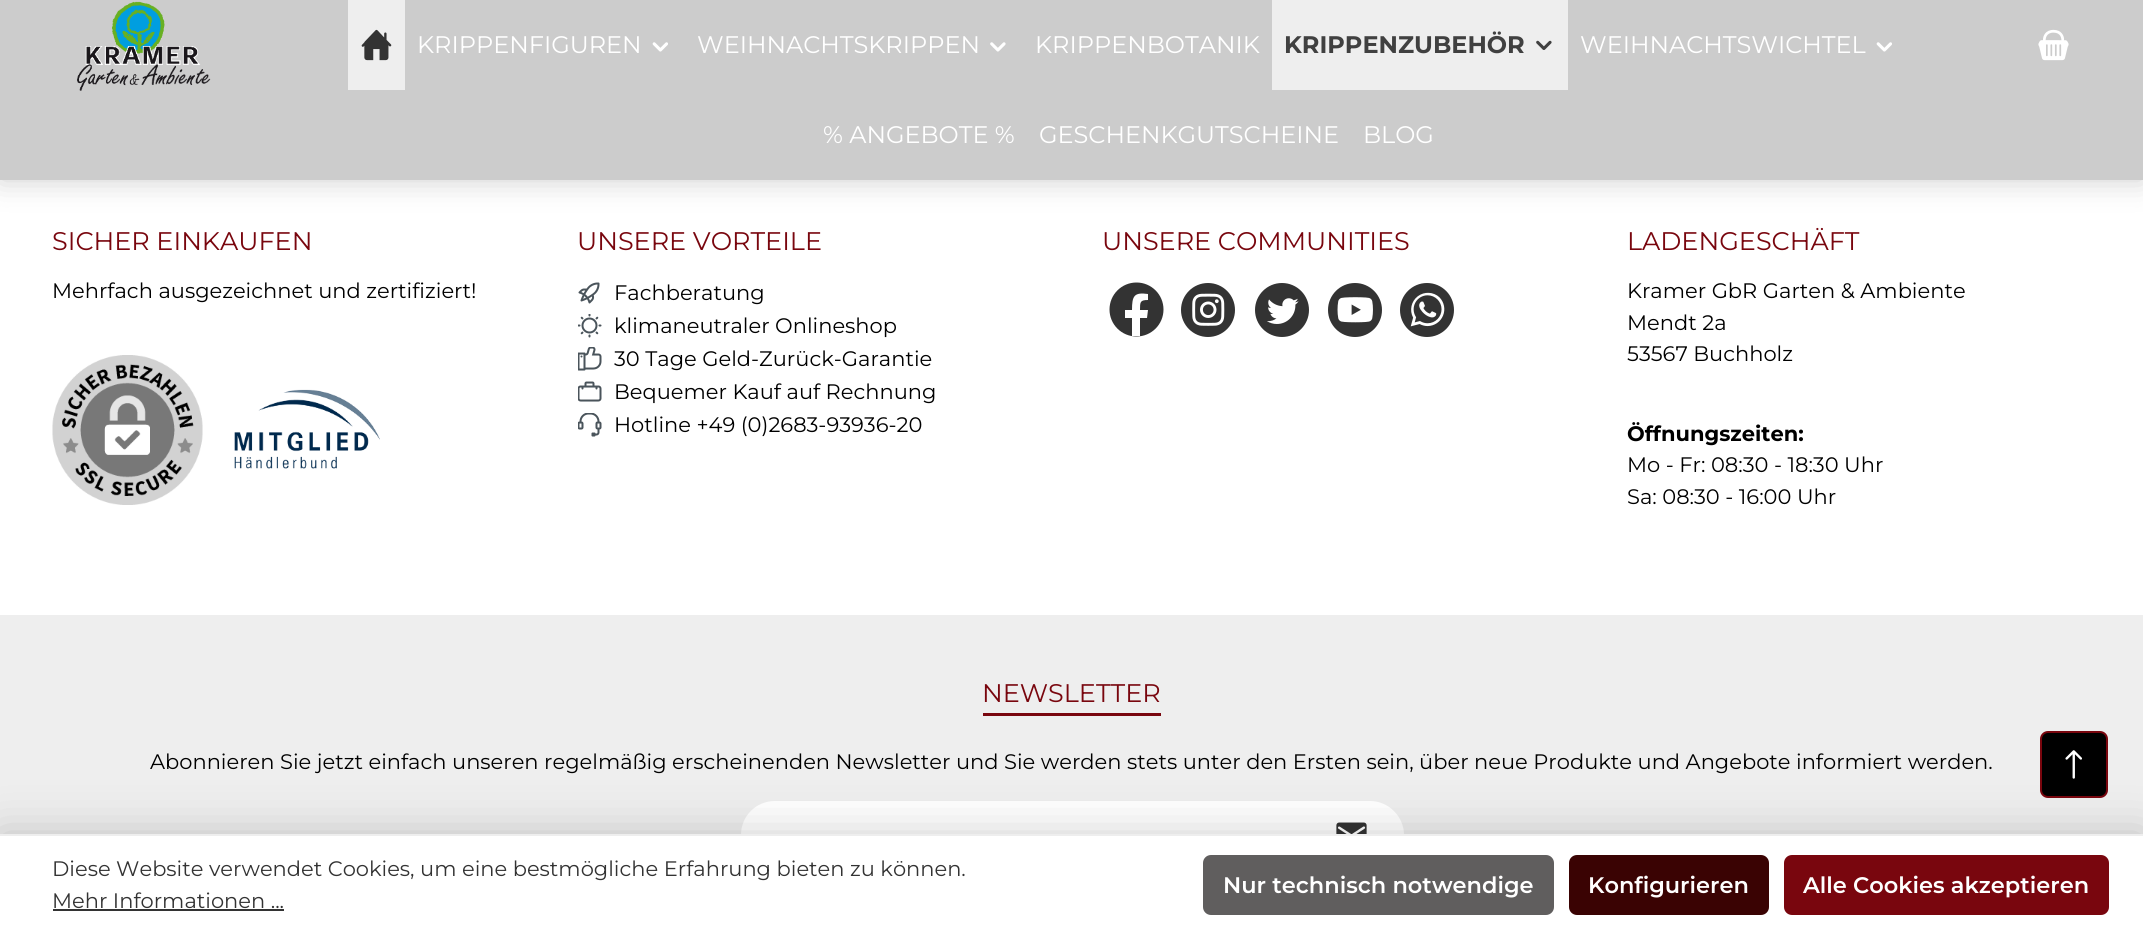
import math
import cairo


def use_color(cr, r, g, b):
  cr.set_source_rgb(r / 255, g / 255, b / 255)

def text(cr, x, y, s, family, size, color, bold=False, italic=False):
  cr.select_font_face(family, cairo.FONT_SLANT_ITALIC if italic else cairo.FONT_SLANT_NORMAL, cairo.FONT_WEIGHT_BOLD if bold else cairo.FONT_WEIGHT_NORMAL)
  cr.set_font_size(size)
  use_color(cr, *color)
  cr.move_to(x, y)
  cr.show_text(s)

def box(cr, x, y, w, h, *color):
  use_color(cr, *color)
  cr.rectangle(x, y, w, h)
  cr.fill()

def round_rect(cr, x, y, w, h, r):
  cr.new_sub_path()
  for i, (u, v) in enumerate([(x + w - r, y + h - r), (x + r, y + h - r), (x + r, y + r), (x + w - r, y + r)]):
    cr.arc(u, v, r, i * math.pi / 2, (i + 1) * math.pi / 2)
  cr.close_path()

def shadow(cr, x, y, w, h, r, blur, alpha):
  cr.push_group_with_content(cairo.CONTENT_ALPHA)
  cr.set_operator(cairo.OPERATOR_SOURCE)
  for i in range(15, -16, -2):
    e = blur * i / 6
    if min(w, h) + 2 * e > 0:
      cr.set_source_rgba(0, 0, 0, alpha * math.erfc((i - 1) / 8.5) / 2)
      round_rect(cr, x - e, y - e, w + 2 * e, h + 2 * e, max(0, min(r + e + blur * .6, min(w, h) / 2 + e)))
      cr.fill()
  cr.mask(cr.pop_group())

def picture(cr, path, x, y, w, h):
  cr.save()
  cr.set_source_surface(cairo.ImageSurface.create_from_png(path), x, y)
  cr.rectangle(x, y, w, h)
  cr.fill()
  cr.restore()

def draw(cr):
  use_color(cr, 255, 255, 255)
  cr.paint()
  use_color(cr, 0, 0, 0)
  shadow(cr, 0, 0, 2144, 180, 0, 15, 0.2)
  box(cr, 0, 0, 2143, 180, 204, 204, 204)
  picture(cr, "img_01.png", 77, 1, 134, 90)
  picture(cr, "img_02.png", 2038, 29, 31, 32)
  box(cr, 348, 0, 57, 90, 238, 238, 238)
  picture(cr, "img_03.png", 361, 29, 31, 32)
  picture(cr, "img_04.png", 652, 42, 16, 10)
  picture(cr, "img_05.png", 990, 42, 16, 10)
  box(cr, 1272, 0, 296, 90, 238, 238, 238)
  picture(cr, "img_06.png", 1536, 40, 16, 10)
  picture(cr, "img_04.png", 1876, 42, 16, 10)
  picture(cr, "img_07.png", 52, 355, 151, 150)
  picture(cr, "img_08.png", 234, 389, 146, 80)
  picture(cr, "img_09.png", 578, 282, 22, 22)
  picture(cr, "img_10.png", 578, 314, 24, 24)
  picture(cr, "img_11.png", 578, 347, 24, 24)
  picture(cr, "img_12.png", 578, 381, 24, 21)
  picture(cr, "img_13.png", 578, 413, 24, 24)
  use_color(cr, 51, 51, 51)
  cr.arc(1136.5, 309.5, 27, 0, 2 * math.pi)
  cr.fill()
  use_color(cr, 255, 255, 255)
  cr.new_path()
  cr.move_to(1147, 318)
  cr.line_to(1148, 310)
  cr.line_to(1140, 310)
  cr.curve_to(1140, 302, 1140, 300, 1148, 300)
  cr.line_to(1148, 294)
  cr.curve_to(1134, 292, 1132, 296, 1132, 310)
  cr.line_to(1125, 310)
  cr.line_to(1125, 318)
  cr.line_to(1132, 318)
  cr.line_to(1132, 336)
  cr.line_to(1140, 336)
  cr.line_to(1140, 318)
  cr.close_path()
  cr.fill()
  picture(cr, "img_14.png", 1181, 283, 54, 54)
  picture(cr, "img_15.png", 1255, 283, 54, 54)
  picture(cr, "img_16.png", 1328, 283, 54, 54)
  picture(cr, "img_17.png", 1400, 283, 54, 54)
  box(cr, 0, 615, 2143, 219, 238, 238, 238)
  box(cr, 983, 713, 178, 3, 121, 6, 14)
  use_color(cr, 255, 255, 255)
  cr.new_path()
  cr.move_to(775, 801)
  cr.line_to(1299, 801)
  cr.line_to(1299, 869)
  cr.line_to(775, 869)
  cr.curve_to(756, 869, 741, 854, 741, 835)
  cr.curve_to(741, 816, 756, 801, 775, 801)
  cr.close_path()
  cr.fill()
  cr.new_path()
  cr.move_to(1300, 802)
  cr.line_to(1370, 802)
  cr.curve_to(1388, 802, 1403, 817, 1403, 835)
  cr.curve_to(1403, 853, 1388, 868, 1370, 868)
  cr.line_to(1300, 868)
  cr.close_path()
  cr.fill_preserve()
  cr.stroke()
  picture(cr, "img_18.png", 1336, 822, 31, 12)
  use_color(cr, 0, 0, 0)
  round_rect(cr, 2041, 732, 66, 65, 7)
  cr.fill_preserve()
  use_color(cr, 121, 6, 14)
  cr.stroke()
  picture(cr, "img_19.png", 2065, 750, 17, 29)
  use_color(cr, 0, 0, 0)
  shadow(cr, 0, 834, 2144, 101, 0, 22.5, 0.2)
  box(cr, 0, 836, 2143, 98, 255, 255, 255)
  box(cr, 0, 834, 2143, 2, 238, 238, 238)
  box(cr, 53, 909, 231, 2, 51, 51, 51)
  use_color(cr, 96, 94, 94)
  round_rect(cr, 1204, 856, 349, 58, 7)
  cr.fill_preserve()
  cr.stroke()
  use_color(cr, 58, 3, 3)
  round_rect(cr, 1570, 856, 198, 58, 7)
  cr.fill_preserve()
  cr.stroke()
  use_color(cr, 121, 6, 14)
  round_rect(cr, 1785, 856, 323, 58, 7)
  cr.fill_preserve()
  cr.stroke()
  text(cr, 417, 53, "KRIPPENFIGUREN", "Montserrat Thin", 24, (255, 255, 255))
  text(cr, 697, 53, "WEIHNACHTSKRIPPEN", "Montserrat Thin", 24, (255, 255, 255))
  text(cr, 1035, 53, "KRIPPENBOTANIK", "Montserrat Thin", 24, (255, 255, 255))
  text(cr, 1284, 53, "KRIPPENZUBEHÖR", "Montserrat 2 Thin", 24, (64, 64, 64))
  text(cr, 1580, 53, "WEIHNACHTSWICHTEL", "Montserrat Thin", 24, (255, 255, 255))
  text(cr, 823, 143, "% ANGEBOTE %", "Montserrat Thin", 24, (255, 255, 255))
  text(cr, 1039, 143, "GESCHENKGUTSCHEINE", "Montserrat Thin", 24, (255, 255, 255))
  text(cr, 1363, 143, "BLOG", "Montserrat Thin", 24, (255, 255, 255))
  text(cr, 52, 250, "SICHER EINKAUFEN", "Montserrat Thin", 25.5, (121, 6, 14))
  text(cr, 52, 298, "Mehrfach ausgezeichnet und zertifiziert!", "Montserrat Thin", 21, (0, 0, 0))
  text(cr, 577, 250, "UNSERE VORTEILE", "Montserrat Thin", 25.5, (121, 6, 14))
  text(cr, 614, 300, "Fachberatung", "Montserrat Thin", 21, (0, 0, 0))
  text(cr, 614, 333, "klimaneutraler Onlineshop", "Montserrat Thin", 21, (0, 0, 0))
  text(cr, 614, 366, "30 Tage Geld-Zurück-Garantie", "Montserrat Thin", 21, (0, 0, 0))
  text(cr, 614, 399, "Bequemer Kauf auf Rechnung", "Montserrat Thin", 21, (0, 0, 0))
  text(cr, 614, 432, "Hotline +49 (0)2683-93936-20", "Montserrat Thin", 21, (0, 0, 0))
  text(cr, 1102, 250, "UNSERE COMMUNITIES", "Montserrat Thin", 25.5, (121, 6, 14))
  text(cr, 1627, 250, "LADENGESCHÄFT", "Montserrat Thin", 25.5, (121, 6, 14))
  text(cr, 1627, 298, "Kramer GbR Garten & Ambiente", "Montserrat Thin", 21, (0, 0, 0))
  text(cr, 1627, 330, "Mendt 2a", "Montserrat Thin", 21, (0, 0, 0))
  text(cr, 1627, 361, "53567 Buchholz", "Montserrat Thin", 21, (0, 0, 0))
  text(cr, 1627, 441, "Öffnungszeiten:", "Montserrat 2 Thin", 21, (0, 0, 0))
  text(cr, 1627, 472, "Mo - Fr: 08:30 - 18:30 Uhr", "Montserrat Thin", 21, (0, 0, 0))
  text(cr, 1627, 504, "Sa: 08:30 - 16:00 Uhr", "Montserrat Thin", 21, (0, 0, 0))
  text(cr, 982, 702, "NEWSLETTER", "Montserrat Thin", 25.5, (121, 6, 14))
  text(cr, 150, 769, "Abonnieren Sie jetzt einfach unseren regelmäßig erscheinenden Newsletter und Sie werden stets unter den Ersten sein, über neue Produkte und Angebote informiert werden.", "Montserrat Thin", 21, (0, 0, 0))
  text(cr, 52, 876, "Diese Website verwendet Cookies, um eine bestmögliche Erfahrung bieten zu können.", "Montserrat Thin", 21, (51, 51, 51))
  text(cr, 52, 908, "Mehr Informationen ...", "Montserrat Thin", 21, (51, 51, 51))
  text(cr, 1223, 893, "Nur technisch notwendige", "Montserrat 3 Thin", 22.5, (255, 255, 255))
  text(cr, 1588, 893, "Konfigurieren", "Montserrat 3 Thin", 22.5, (255, 255, 255))
  text(cr, 1803, 893, "Alle Cookies akzeptieren", "Montserrat 3 Thin", 22.5, (255, 255, 255))


surface = cairo.ImageSurface(cairo.FORMAT_RGB24, 2143, 934)
cr = cairo.Context(surface)
options = cairo.FontOptions()
options.set_hint_metrics(cairo.HINT_METRICS_OFF)
options.set_hint_style(cairo.HINT_STYLE_NONE)
cr.set_font_options(options)
cr.set_miter_limit(4)
draw(cr)
surface.write_to_png("out.png")
